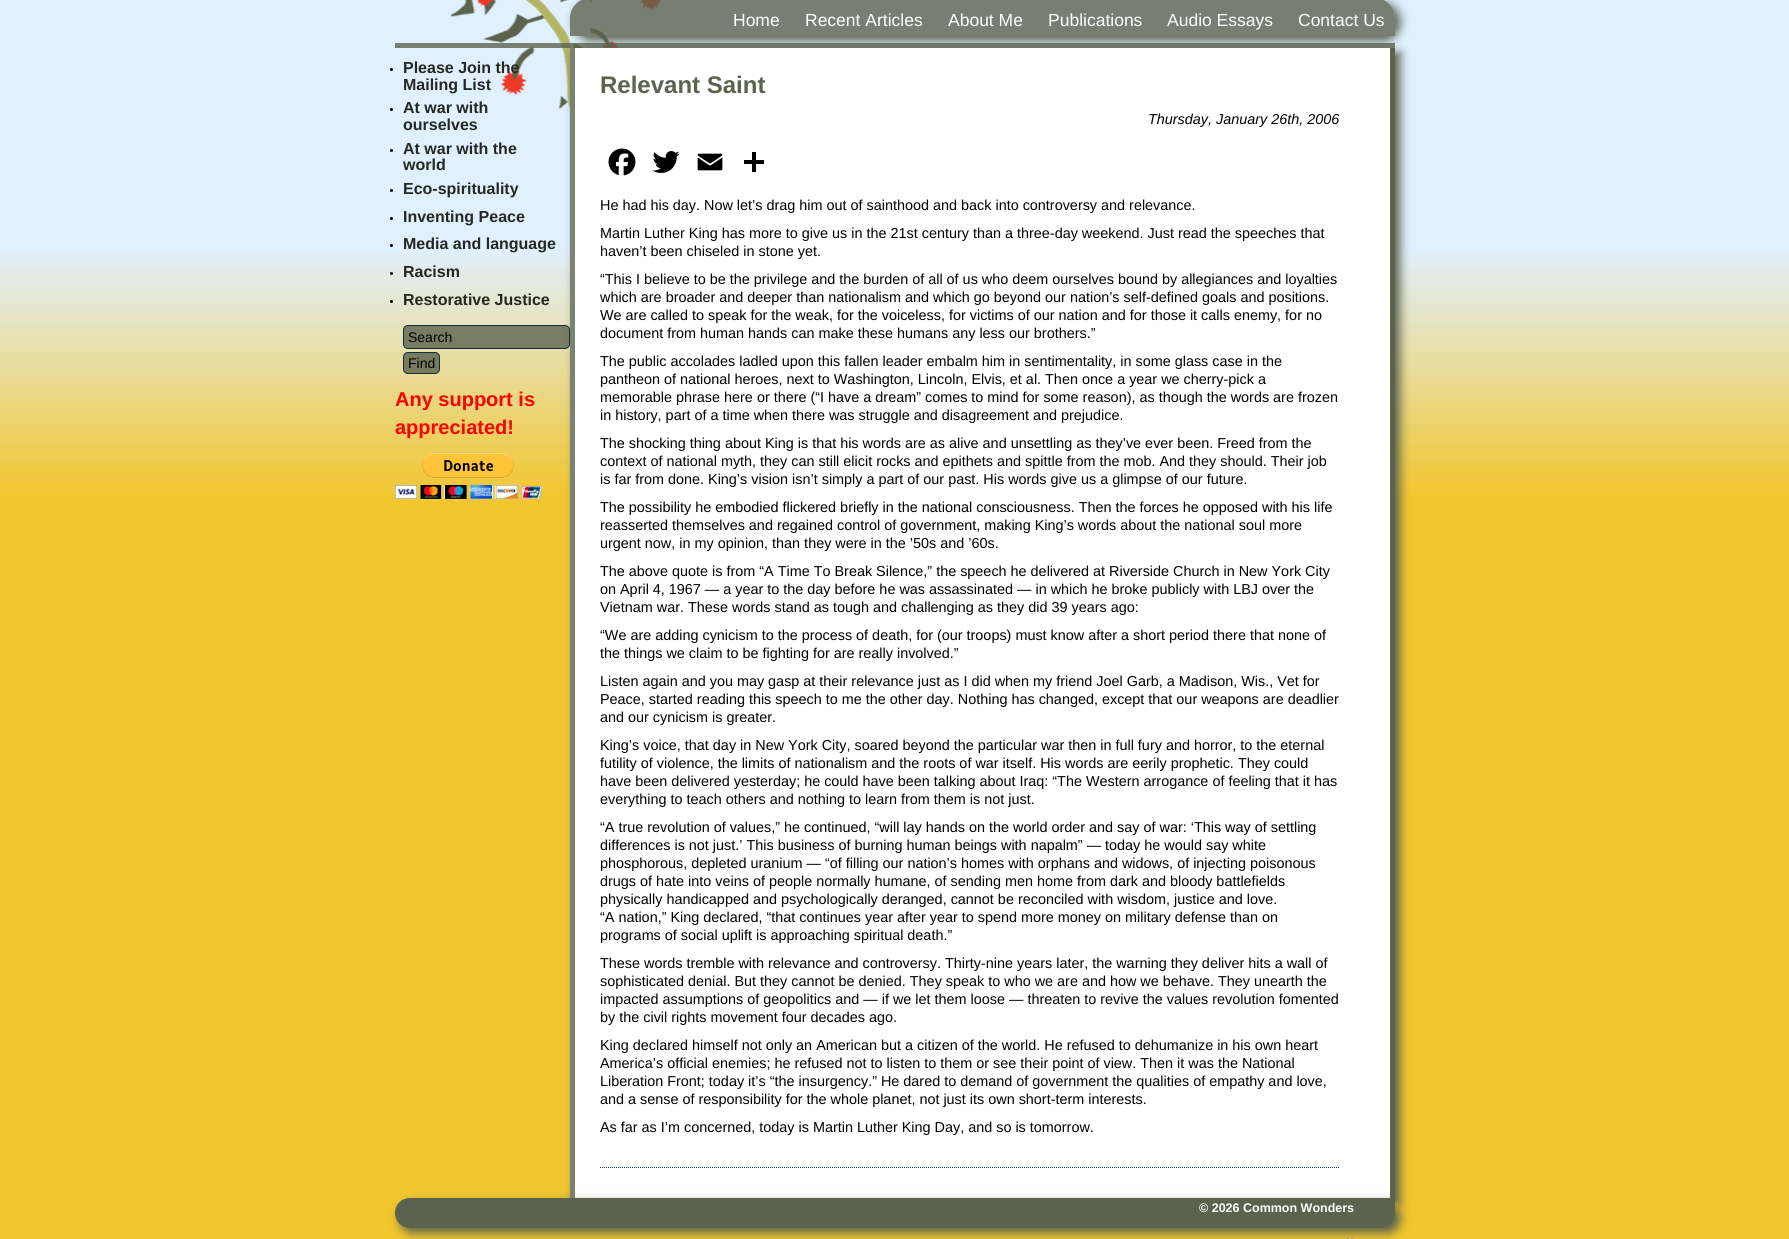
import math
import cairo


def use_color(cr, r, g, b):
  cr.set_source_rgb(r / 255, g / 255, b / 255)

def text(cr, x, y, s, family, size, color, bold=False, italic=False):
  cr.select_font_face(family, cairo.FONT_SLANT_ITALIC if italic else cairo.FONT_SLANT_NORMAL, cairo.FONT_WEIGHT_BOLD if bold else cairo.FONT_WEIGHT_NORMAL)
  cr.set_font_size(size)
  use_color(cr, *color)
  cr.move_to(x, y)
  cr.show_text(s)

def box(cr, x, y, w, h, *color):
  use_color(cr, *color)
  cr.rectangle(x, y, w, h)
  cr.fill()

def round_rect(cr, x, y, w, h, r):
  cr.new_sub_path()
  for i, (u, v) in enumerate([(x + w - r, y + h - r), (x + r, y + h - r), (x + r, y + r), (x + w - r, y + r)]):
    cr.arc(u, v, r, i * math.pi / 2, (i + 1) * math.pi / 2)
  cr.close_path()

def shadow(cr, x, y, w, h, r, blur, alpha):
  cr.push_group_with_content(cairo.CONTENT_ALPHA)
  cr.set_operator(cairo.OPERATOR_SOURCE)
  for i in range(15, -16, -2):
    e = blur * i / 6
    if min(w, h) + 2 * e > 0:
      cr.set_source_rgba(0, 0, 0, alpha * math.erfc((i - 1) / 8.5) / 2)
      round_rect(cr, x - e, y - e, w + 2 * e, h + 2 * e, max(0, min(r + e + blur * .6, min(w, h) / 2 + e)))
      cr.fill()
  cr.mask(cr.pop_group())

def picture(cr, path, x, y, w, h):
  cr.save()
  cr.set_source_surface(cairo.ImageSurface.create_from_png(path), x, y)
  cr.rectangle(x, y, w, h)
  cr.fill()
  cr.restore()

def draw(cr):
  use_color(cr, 242, 198, 45)
  cr.paint()
  picture(cr, "img_01.png", 0, 0, 1789, 495)
  picture(cr, "img_02.png", 450, 0, 211, 110)
  cr.set_source_rgba(0.357, 0.388, 0.306, 0.8)
  cr.rectangle(395, 43, 1000, 5)
  cr.fill()
  cr.save()
  cr.set_fill_rule(cairo.FILL_RULE_EVEN_ODD)
  cr.new_path()
  cr.move_to(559, 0)
  cr.line_to(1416, 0)
  cr.line_to(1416, 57)
  cr.line_to(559, 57)
  cr.close_path()
  cr.move_to(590, -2)
  cr.line_to(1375, -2)
  cr.curve_to(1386, -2, 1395, 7, 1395, 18)
  cr.line_to(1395, 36)
  cr.line_to(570, 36)
  cr.line_to(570, 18)
  cr.curve_to(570, 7, 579, -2, 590, -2)
  cr.close_path()
  cr.clip()
  use_color(cr, 91, 99, 78)
  shadow(cr, 575, 3, 825, 38, 20, 5, 1)
  cr.restore()
  cr.new_path()
  cr.move_to(590, -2)
  cr.line_to(1375, -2)
  cr.curve_to(1386, -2, 1395, 7, 1395, 18)
  cr.line_to(1395, 36)
  cr.line_to(570, 36)
  cr.line_to(570, 18)
  cr.curve_to(570, 7, 579, -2, 590, -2)
  cr.close_path()
  cr.fill()
  use_color(cr, 0, 0, 0)
  cr.arc(391.5, 69.5, 1.5, 0, 2 * math.pi)
  cr.fill()
  cr.arc(391.5, 109.5, 1.5, 0, 2 * math.pi)
  cr.fill()
  cr.arc(391.5, 150.5, 1.5, 0, 2 * math.pi)
  cr.fill()
  cr.arc(391.5, 190.5, 1.5, 0, 2 * math.pi)
  cr.fill()
  cr.arc(391.5, 218.5, 1.5, 0, 2 * math.pi)
  cr.fill()
  cr.arc(391.5, 245.5, 1.5, 0, 2 * math.pi)
  cr.fill()
  cr.arc(391.5, 273.5, 1.5, 0, 2 * math.pi)
  cr.fill()
  cr.arc(391.5, 301.5, 1.5, 0, 2 * math.pi)
  cr.fill()
  use_color(cr, 91, 99, 78)
  shadow(cr, 575, 53, 825, 1150, 0, 5, 1)
  cr.set_source_rgba(0.357, 0.388, 0.306, 0.8)
  round_rect(cr, 403.5, 325.5, 166, 23, 4.5)
  cr.fill_preserve()
  use_color(cr, 20, 45, 65)
  cr.set_line_width(1)
  cr.stroke()
  cr.set_source_rgba(0.357, 0.388, 0.306, 0.8)
  round_rect(cr, 403.5, 352.5, 36, 21, 4.5)
  cr.fill_preserve()
  use_color(cr, 20, 45, 65)
  cr.stroke()
  picture(cr, "img_03.png", 395, 452, 147, 47)
  box(cr, 575, 48, 815, 1150, 255, 255, 255)
  box(cr, 1390, 48, 5, 1150, 91, 99, 78)
  box(cr, 570, 48, 5, 1150, 124, 130, 113)
  picture(cr, "img_04.png", 608, 148, 28, 28)
  picture(cr, "img_05.png", 652, 151, 28, 22)
  picture(cr, "img_06.png", 697, 153, 26, 18)
  box(cr, 752, 152, 4, 20, 0, 0, 0)
  box(cr, 744, 160, 20, 4, 0, 0, 0)
  cr.new_path()
  cr.move_to(600, 1167.5)
  cr.line_to(1340, 1167.5)
  use_color(cr, 20, 45, 65)
  cr.set_dash([1, 1])
  cr.stroke()
  use_color(cr, 91, 99, 78)
  shadow(cr, 400, 1203, 1000, 30, 15, 5, 1)
  use_color(cr, 91, 99, 78)
  cr.new_path()
  cr.move_to(410, 1198)
  cr.line_to(1395, 1198)
  cr.line_to(1395, 1213)
  cr.curve_to(1395, 1221.5, 1388.5, 1228, 1380, 1228)
  cr.line_to(410, 1228)
  cr.curve_to(401.5, 1228, 395, 1221.5, 395, 1213)
  cr.curve_to(395, 1204.5, 401.5, 1198, 410, 1198)
  cr.close_path()
  cr.fill()
  picture(cr, "img_07.png", 1345, 1238, 8, 1)
  text(cr, 733, 26, "Home", "Liberation Sans", 17.5, (255, 255, 255))
  text(cr, 805, 26, "Recent Articles", "Liberation Sans", 17.5, (255, 255, 255))
  text(cr, 948, 26, "About Me", "Liberation Sans", 17.5, (255, 255, 255))
  text(cr, 1048, 26, "Publications", "Liberation Sans", 17.5, (255, 255, 255))
  text(cr, 1167, 26, "Audio Essays", "Liberation Sans", 17.5, (255, 255, 255))
  text(cr, 1298, 26, "Contact Us", "Liberation Sans", 17.5, (255, 255, 255))
  text(cr, 403, 73, "Please Join the", "Liberation Sans", 16, (37, 40, 32), bold=True)
  text(cr, 403, 90, "Mailing List", "Liberation Sans", 16, (37, 40, 32), bold=True)
  text(cr, 403, 113, "At war with", "Liberation Sans", 16, (37, 40, 32), bold=True)
  text(cr, 403, 130, "ourselves", "Liberation Sans", 16, (37, 40, 32), bold=True)
  text(cr, 403, 154, "At war with the", "Liberation Sans", 16, (37, 40, 32), bold=True)
  text(cr, 403, 170, "world", "Liberation Sans", 16, (37, 40, 32), bold=True)
  text(cr, 403, 194, "Eco-spirituality", "Liberation Sans", 16, (37, 40, 32), bold=True)
  text(cr, 403, 222, "Inventing Peace", "Liberation Sans", 16, (37, 40, 32), bold=True)
  text(cr, 403, 249, "Media and language", "Liberation Sans", 16, (37, 40, 32), bold=True)
  text(cr, 403, 277, "Racism", "Liberation Sans", 16, (37, 40, 32), bold=True)
  text(cr, 403, 305, "Restorative Justice", "Liberation Sans", 16, (37, 40, 32), bold=True)
  text(cr, 408, 342, "Search", "Liberation Sans", 14, (0, 0, 0))
  text(cr, 408, 368, "Find", "Liberation Sans", 14, (0, 0, 0))
  text(cr, 395, 406, "Any support is", "Liberation Sans", 20, (255, 0, 0), bold=True)
  text(cr, 395, 434, "appreciated!", "Liberation Sans", 20, (255, 0, 0), bold=True)
  text(cr, 600, 93, "Relevant Saint", "Liberation Sans", 24, (91, 99, 78), bold=True)
  text(cr, 1148, 124, "Thursday, January 26th, 2006", "Liberation Sans", 14.4, (0, 0, 0), italic=True)
  text(cr, 600, 210, "He had his day. Now let’s drag him out of sainthood and back into controversy and relevance.", "Liberation Sans", 14.4, (0, 0, 0))
  text(cr, 600, 238, "Martin Luther King has more to give us in the 21st century than a three-day weekend. Just read the speeches that", "Liberation Sans", 14.4, (0, 0, 0))
  text(cr, 600, 256, "haven’t been chiseled in stone yet.", "Liberation Sans", 14.4, (0, 0, 0))
  text(cr, 600, 284, "“This I believe to be the privilege and the burden of all of us who deem ourselves bound by allegiances and loyalties", "Liberation Sans", 14.4, (0, 0, 0))
  text(cr, 600, 302, "which are broader and deeper than nationalism and which go beyond our nation’s self-defined goals and positions.", "Liberation Sans", 14.4, (0, 0, 0))
  text(cr, 600, 320, "We are called to speak for the weak, for the voiceless, for victims of our nation and for those it calls enemy, for no", "Liberation Sans", 14.4, (0, 0, 0))
  text(cr, 600, 338, "document from human hands can make these humans any less our brothers.”", "Liberation Sans", 14.4, (0, 0, 0))
  text(cr, 600, 366, "The public accolades ladled upon this fallen leader embalm him in sentimentality, in some glass case in the", "Liberation Sans", 14.4, (0, 0, 0))
  text(cr, 600, 384, "pantheon of national heroes, next to Washington, Lincoln, Elvis, et al. Then once a year we cherry-pick a", "Liberation Sans", 14.4, (0, 0, 0))
  text(cr, 600, 402, "memorable phrase here or there (“I have a dream” comes to mind for some reason), as though the words are frozen", "Liberation Sans", 14.4, (0, 0, 0))
  text(cr, 600, 420, "in history, part of a time when there was struggle and disagreement and prejudice.", "Liberation Sans", 14.4, (0, 0, 0))
  text(cr, 600, 448, "The shocking thing about King is that his words are as alive and unsettling as they’ve ever been. Freed from the", "Liberation Sans", 14.4, (0, 0, 0))
  text(cr, 600, 466, "context of national myth, they can still elicit rocks and epithets and spittle from the mob. And they should. Their job", "Liberation Sans", 14.4, (0, 0, 0))
  text(cr, 600, 484, "is far from done. King’s vision isn’t simply a part of our past. His words give us a glimpse of our future.", "Liberation Sans", 14.4, (0, 0, 0))
  text(cr, 600, 512, "The possibility he embodied flickered briefly in the national consciousness. Then the forces he opposed with his life", "Liberation Sans", 14.4, (0, 0, 0))
  text(cr, 600, 530, "reasserted themselves and regained control of government, making King’s words about the national soul more", "Liberation Sans", 14.4, (0, 0, 0))
  text(cr, 600, 548, "urgent now, in my opinion, than they were in the ’50s and ’60s.", "Liberation Sans", 14.4, (0, 0, 0))
  text(cr, 600, 576, "The above quote is from “A Time To Break Silence,” the speech he delivered at Riverside Church in New York City", "Liberation Sans", 14.4, (0, 0, 0))
  text(cr, 600, 594, "on April 4, 1967 — a year to the day before he was assassinated — in which he broke publicly with LBJ over the", "Liberation Sans", 14.4, (0, 0, 0))
  text(cr, 600, 612, "Vietnam war. These words stand as tough and challenging as they did 39 years ago:", "Liberation Sans", 14.4, (0, 0, 0))
  text(cr, 600, 640, "“We are adding cynicism to the process of death, for (our troops) must know after a short period there that none of", "Liberation Sans", 14.4, (0, 0, 0))
  text(cr, 600, 658, "the things we claim to be fighting for are really involved.”", "Liberation Sans", 14.4, (0, 0, 0))
  text(cr, 600, 686, "Listen again and you may gasp at their relevance just as I did when my friend Joel Garb, a Madison, Wis., Vet for", "Liberation Sans", 14.4, (0, 0, 0))
  text(cr, 600, 704, "Peace, started reading this speech to me the other day. Nothing has changed, except that our weapons are deadlier", "Liberation Sans", 14.4, (0, 0, 0))
  text(cr, 600, 722, "and our cynicism is greater.", "Liberation Sans", 14.4, (0, 0, 0))
  text(cr, 600, 750, "King’s voice, that day in New York City, soared beyond the particular war then in full fury and horror, to the eternal", "Liberation Sans", 14.4, (0, 0, 0))
  text(cr, 600, 768, "futility of violence, the limits of nationalism and the roots of war itself. His words are eerily prophetic. They could", "Liberation Sans", 14.4, (0, 0, 0))
  text(cr, 600, 786, "have been delivered yesterday; he could have been talking about Iraq: “The Western arrogance of feeling that it has", "Liberation Sans", 14.4, (0, 0, 0))
  text(cr, 600, 804, "everything to teach others and nothing to learn from them is not just.", "Liberation Sans", 14.4, (0, 0, 0))
  text(cr, 600, 832, "“A true revolution of values,” he continued, “will lay hands on the world order and say of war: ‘This way of settling", "Liberation Sans", 14.4, (0, 0, 0))
  text(cr, 600, 850, "differences is not just.’ This business of burning human beings with napalm” — today he would say white", "Liberation Sans", 14.4, (0, 0, 0))
  text(cr, 600, 868, "phosphorous, depleted uranium — “of filling our nation’s homes with orphans and widows, of injecting poisonous", "Liberation Sans", 14.4, (0, 0, 0))
  text(cr, 600, 886, "drugs of hate into veins of people normally humane, of sending men home from dark and bloody battlefields", "Liberation Sans", 14.4, (0, 0, 0))
  text(cr, 600, 904, "physically handicapped and psychologically deranged, cannot be reconciled with wisdom, justice and love.", "Liberation Sans", 14.4, (0, 0, 0))
  text(cr, 600, 922, "“A nation,” King declared, “that continues year after year to spend more money on military defense than on", "Liberation Sans", 14.4, (0, 0, 0))
  text(cr, 600, 940, "programs of social uplift is approaching spiritual death.”", "Liberation Sans", 14.4, (0, 0, 0))
  text(cr, 600, 968, "These words tremble with relevance and controversy. Thirty-nine years later, the warning they deliver hits a wall of", "Liberation Sans", 14.4, (0, 0, 0))
  text(cr, 600, 986, "sophisticated denial. But they cannot be denied. They speak to who we are and how we behave. They unearth the", "Liberation Sans", 14.4, (0, 0, 0))
  text(cr, 600, 1004, "impacted assumptions of geopolitics and — if we let them loose — threaten to revive the values revolution fomented", "Liberation Sans", 14.4, (0, 0, 0))
  text(cr, 600, 1022, "by the civil rights movement four decades ago.", "Liberation Sans", 14.4, (0, 0, 0))
  text(cr, 600, 1050, "King declared himself not only an American but a citizen of the world. He refused to dehumanize in his own heart", "Liberation Sans", 14.4, (0, 0, 0))
  text(cr, 600, 1068, "America’s official enemies; he refused not to listen to them or see their point of view. Then it was the National", "Liberation Sans", 14.4, (0, 0, 0))
  text(cr, 600, 1086, "Liberation Front; today it’s “the insurgency.” He dared to demand of government the qualities of empathy and love,", "Liberation Sans", 14.4, (0, 0, 0))
  text(cr, 600, 1104, "and a sense of responsibility for the whole planet, not just its own short-term interests.", "Liberation Sans", 14.4, (0, 0, 0))
  text(cr, 600, 1132, "As far as I’m concerned, today is Martin Luther King Day, and so is tomorrow.", "Liberation Sans", 14.4, (0, 0, 0))
  text(cr, 1199, 1212, "© 2026 Common Wonders", "Liberation Sans", 12.5, (255, 255, 255), bold=True)


surface = cairo.ImageSurface(cairo.FORMAT_RGB24, 1789, 1239)
cr = cairo.Context(surface)
options = cairo.FontOptions()
options.set_hint_metrics(cairo.HINT_METRICS_OFF)
options.set_hint_style(cairo.HINT_STYLE_NONE)
cr.set_font_options(options)
cr.set_miter_limit(4)
draw(cr)
surface.write_to_png("out.png")
